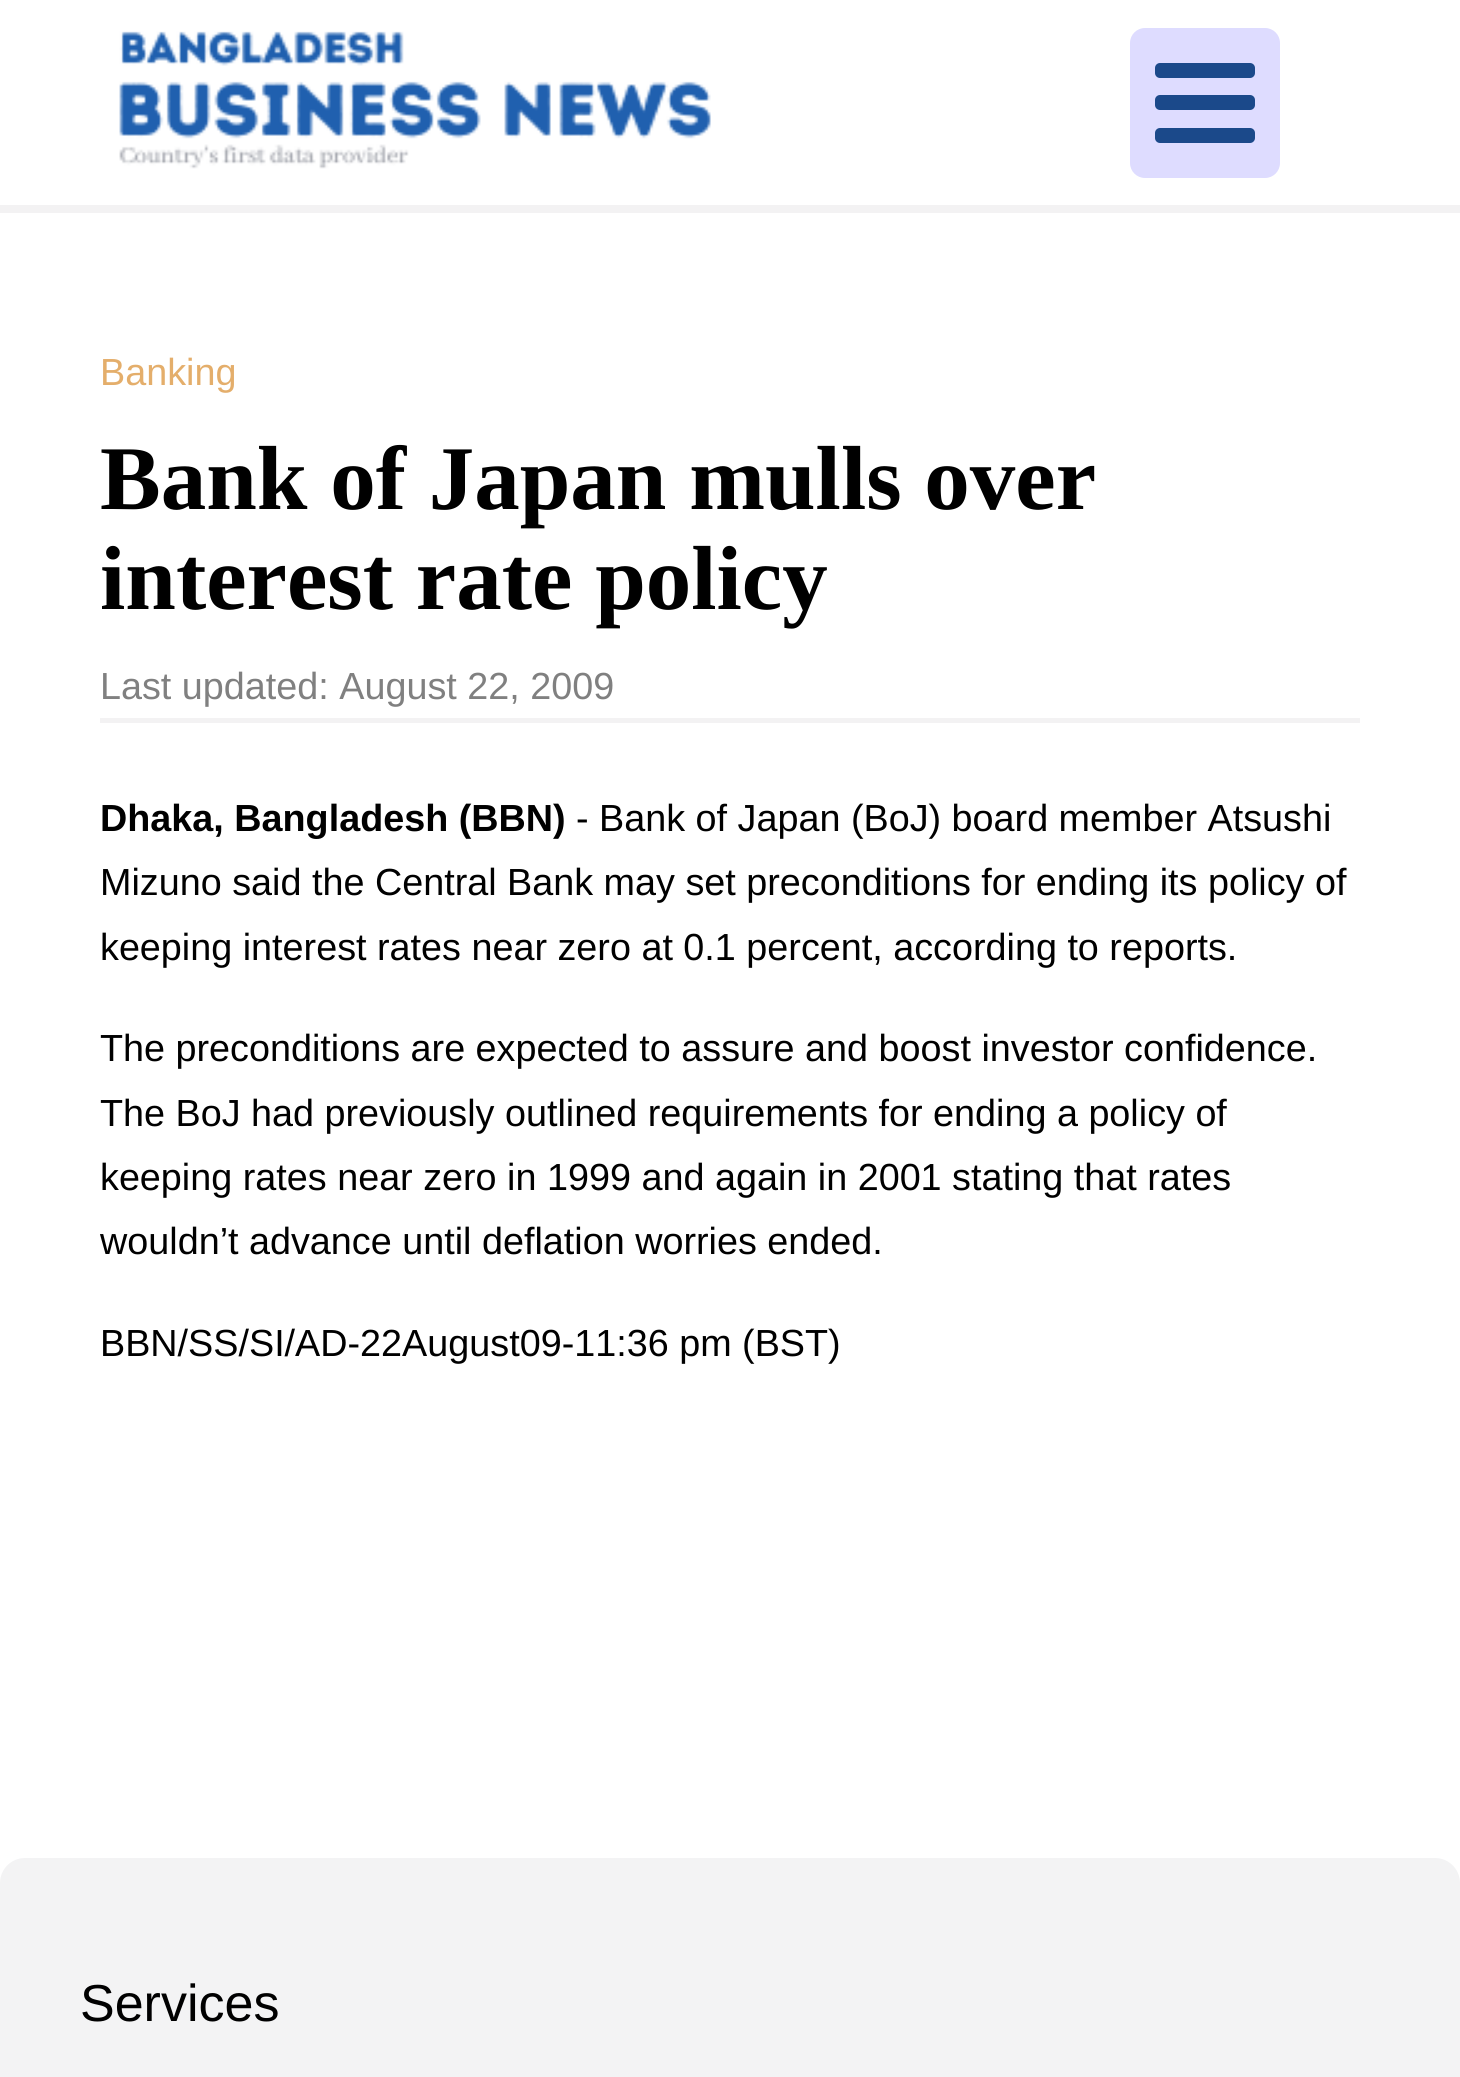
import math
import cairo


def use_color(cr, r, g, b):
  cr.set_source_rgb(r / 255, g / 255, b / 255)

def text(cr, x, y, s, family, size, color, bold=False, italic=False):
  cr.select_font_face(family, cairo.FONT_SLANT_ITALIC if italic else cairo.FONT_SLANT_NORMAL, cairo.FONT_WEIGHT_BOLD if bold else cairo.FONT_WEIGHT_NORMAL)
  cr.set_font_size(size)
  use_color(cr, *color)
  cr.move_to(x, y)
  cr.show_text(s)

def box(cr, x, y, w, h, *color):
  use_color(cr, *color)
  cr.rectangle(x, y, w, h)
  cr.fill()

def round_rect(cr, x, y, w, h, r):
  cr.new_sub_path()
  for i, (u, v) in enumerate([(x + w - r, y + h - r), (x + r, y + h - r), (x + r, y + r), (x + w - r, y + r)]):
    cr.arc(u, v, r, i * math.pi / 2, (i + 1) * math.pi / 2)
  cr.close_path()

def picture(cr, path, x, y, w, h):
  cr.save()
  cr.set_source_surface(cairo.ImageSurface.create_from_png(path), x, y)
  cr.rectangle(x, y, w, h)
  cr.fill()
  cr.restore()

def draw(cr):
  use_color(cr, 255, 255, 255)
  cr.paint()
  box(cr, 0, 205, 1460, 8, 243, 242, 243)
  picture(cr, "img_01.png", 119, 31, 592, 138)
  use_color(cr, 222, 220, 255)
  round_rect(cr, 1130, 28, 150, 150, 15)
  cr.fill()
  use_color(cr, 27, 73, 138)
  round_rect(cr, 1155, 63, 100, 15, 5)
  cr.fill()
  round_rect(cr, 1155, 95, 100, 15, 5)
  cr.fill()
  round_rect(cr, 1155, 128, 100, 15, 5)
  cr.fill()
  box(cr, 100, 718, 1260, 5, 243, 242, 243)
  use_color(cr, 243, 243, 244)
  round_rect(cr, 0, 1858, 1460, 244, 25)
  cr.fill()
  text(cr, 100, 385, "Banking", "Liberation Sans", 37.75, (228, 174, 107))
  text(cr, 100, 509, "Bank of Japan mulls over", "Liberation Serif", 91, (0, 0, 0), bold=True)
  text(cr, 100, 609, "interest rate policy", "Liberation Serif", 91, (0, 0, 0), bold=True)
  text(cr, 100, 699, "Last updated: August 22, 2009", "Liberation Sans", 37.75, (128, 128, 128))
  text(cr, 100, 831, "Dhaka, Bangladesh (BBN)", "Liberation Sans", 37.75, (0, 0, 0), bold=True)
  text(cr, 576, 831, "- Bank of Japan (BoJ) board member Atsushi", "Liberation Sans", 37.75, (0, 0, 0))
  text(cr, 100, 895, "Mizuno said the Central Bank may set preconditions for ending its policy of", "Liberation Sans", 37.75, (0, 0, 0))
  text(cr, 100, 960, "keeping interest rates near zero at 0.1 percent, according to reports.", "Liberation Sans", 37.75, (0, 0, 0))
  text(cr, 100, 1061, "The preconditions are expected to assure and boost investor confidence.", "Liberation Sans", 37.75, (0, 0, 0))
  text(cr, 100, 1126, "The BoJ had previously outlined requirements for ending a policy of", "Liberation Sans", 37.75, (0, 0, 0))
  text(cr, 100, 1190, "keeping rates near zero in 1999 and again in 2001 stating that rates", "Liberation Sans", 37.75, (0, 0, 0))
  text(cr, 100, 1254, "wouldn’t advance until deflation worries ended.", "Liberation Sans", 37.75, (0, 0, 0))
  text(cr, 100, 1356, "BBN/SS/SI/AD-22August09-11:36 pm (BST)", "Liberation Sans", 37.75, (0, 0, 0))
  text(cr, 80, 2021, "Services", "Liberation Sans", 52, (0, 0, 0))


surface = cairo.ImageSurface(cairo.FORMAT_RGB24, 1460, 2077)
cr = cairo.Context(surface)
options = cairo.FontOptions()
options.set_hint_metrics(cairo.HINT_METRICS_OFF)
options.set_hint_style(cairo.HINT_STYLE_NONE)
cr.set_font_options(options)
cr.set_miter_limit(4)
draw(cr)
surface.write_to_png("out.png")
